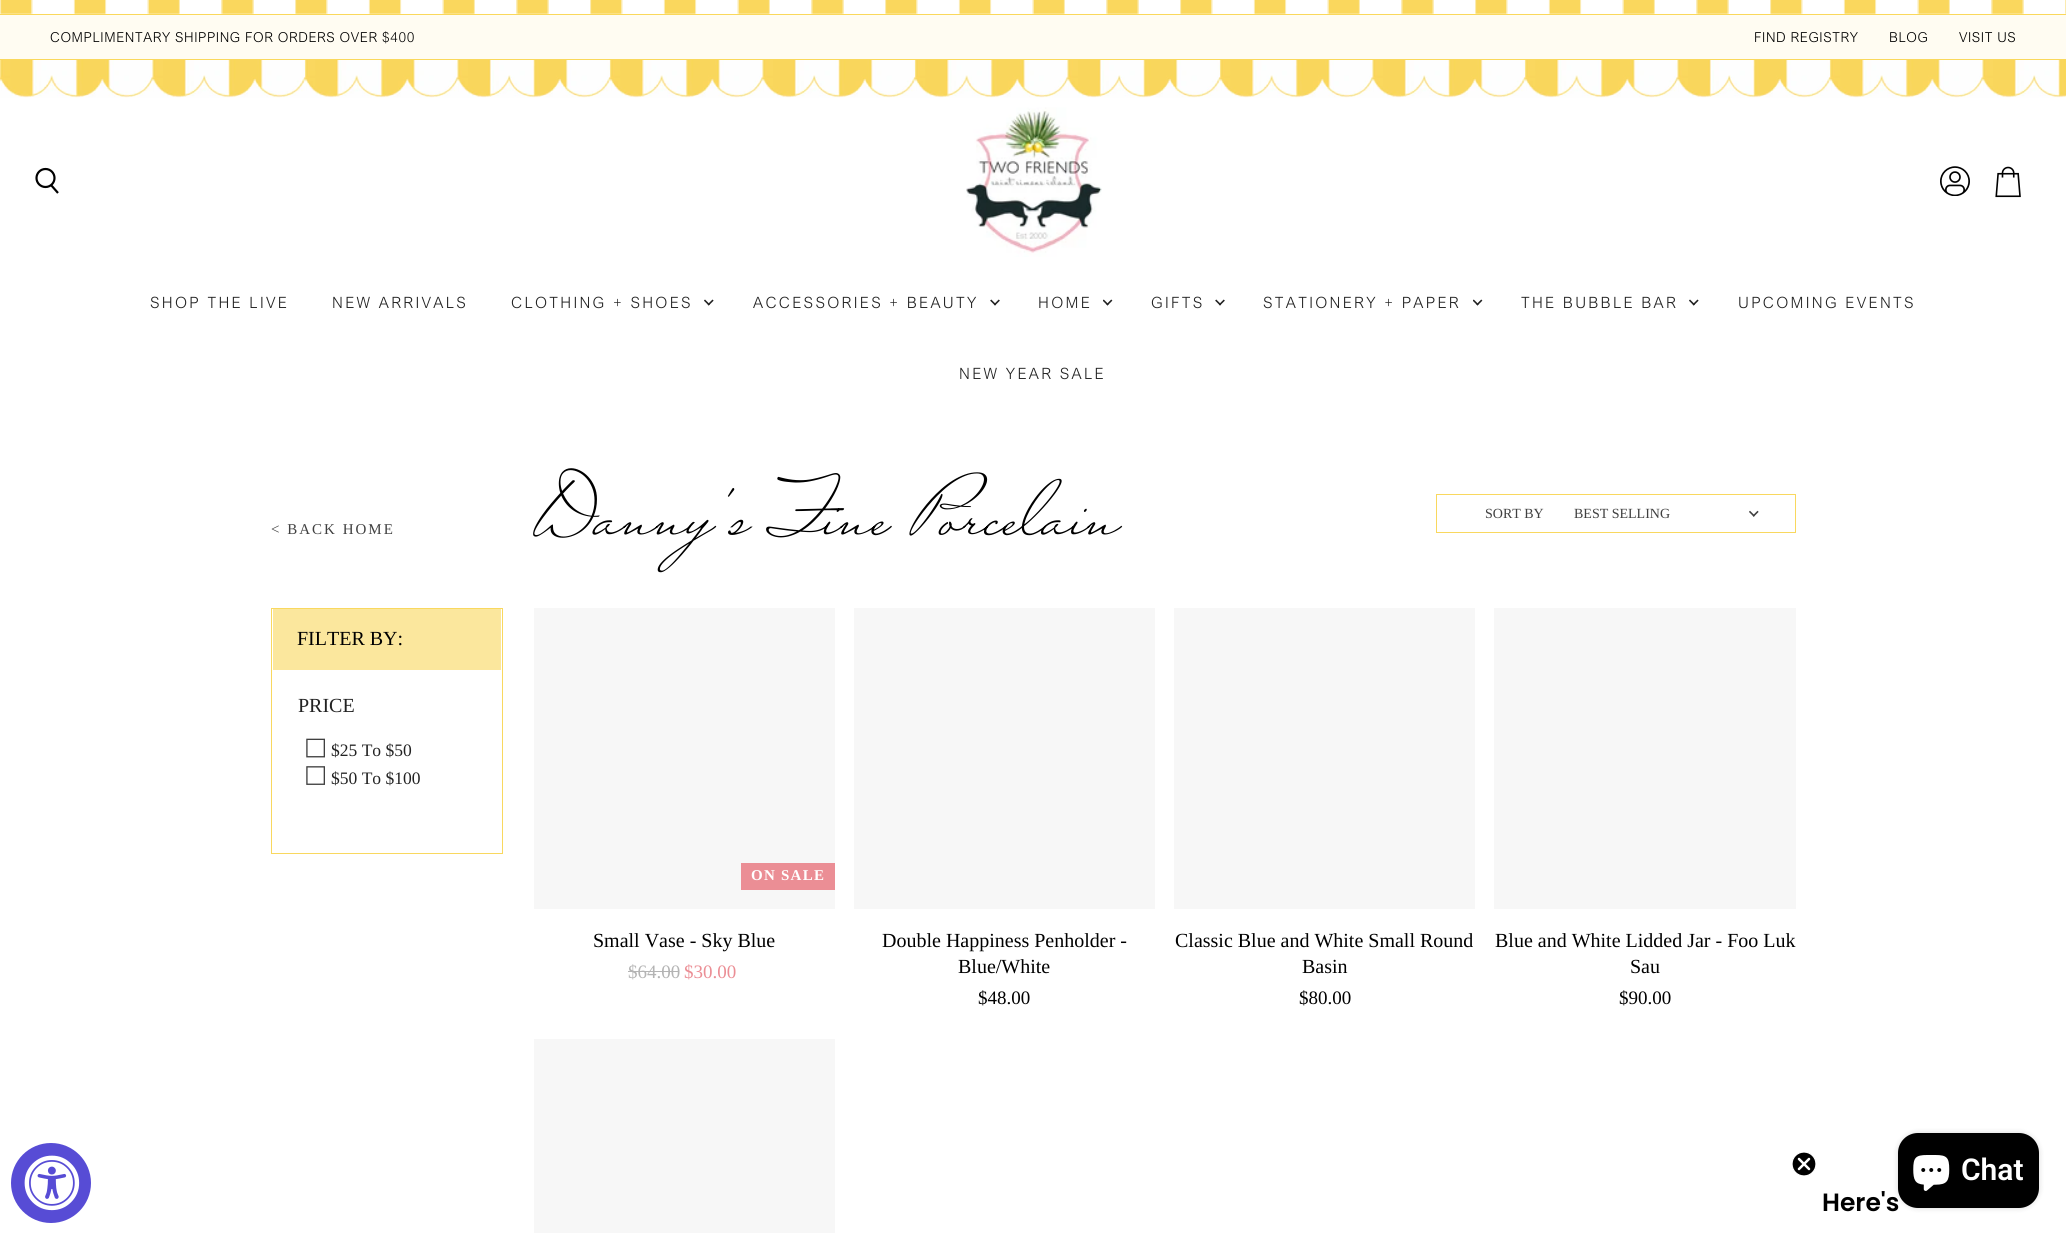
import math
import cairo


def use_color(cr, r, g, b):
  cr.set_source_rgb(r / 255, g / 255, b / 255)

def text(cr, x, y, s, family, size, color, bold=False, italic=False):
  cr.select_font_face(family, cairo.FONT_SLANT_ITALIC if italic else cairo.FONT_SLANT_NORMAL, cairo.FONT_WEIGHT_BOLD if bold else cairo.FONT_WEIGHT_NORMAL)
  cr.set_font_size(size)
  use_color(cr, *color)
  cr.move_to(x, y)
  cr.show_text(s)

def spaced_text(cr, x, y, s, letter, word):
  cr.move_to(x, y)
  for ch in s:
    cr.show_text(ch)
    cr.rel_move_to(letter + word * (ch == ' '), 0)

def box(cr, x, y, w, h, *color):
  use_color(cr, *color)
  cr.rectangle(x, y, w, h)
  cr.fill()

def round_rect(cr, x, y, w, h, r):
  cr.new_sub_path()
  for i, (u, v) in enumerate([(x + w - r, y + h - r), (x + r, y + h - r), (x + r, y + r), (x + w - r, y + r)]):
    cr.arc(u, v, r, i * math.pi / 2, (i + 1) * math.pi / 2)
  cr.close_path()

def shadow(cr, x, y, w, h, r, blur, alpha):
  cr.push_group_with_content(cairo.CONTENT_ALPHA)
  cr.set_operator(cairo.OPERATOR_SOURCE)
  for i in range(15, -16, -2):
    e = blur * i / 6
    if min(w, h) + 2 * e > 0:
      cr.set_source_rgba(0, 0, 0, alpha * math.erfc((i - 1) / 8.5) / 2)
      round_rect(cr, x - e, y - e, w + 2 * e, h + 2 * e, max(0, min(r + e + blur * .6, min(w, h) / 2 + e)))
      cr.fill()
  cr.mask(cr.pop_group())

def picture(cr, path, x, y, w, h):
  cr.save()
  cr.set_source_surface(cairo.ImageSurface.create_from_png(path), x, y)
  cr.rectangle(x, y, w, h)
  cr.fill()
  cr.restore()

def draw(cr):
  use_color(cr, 255, 255, 255)
  cr.paint()
  picture(cr, "img_01.png", 0, 0, 2066, 14)
  box(cr, 0, 15, 2066, 44, 255, 252, 242)
  box(cr, 0, 14, 2066, 1, 250, 216, 91)
  box(cr, 0, 59, 2066, 1, 250, 216, 91)
  picture(cr, "img_02.png", 0, 60, 2066, 38)
  picture(cr, "img_03.png", 966, 107, 136, 150)
  cr.new_path()
  cr.move_to(58, 193)
  cr.line_to(51, 185)
  use_color(cr, 0, 0, 0)
  cr.set_line_width(2.2)
  cr.stroke()
  cr.arc(45.5, 178, 9, 0, 2 * math.pi)
  cr.stroke()
  picture(cr, "img_04.png", 1940, 166, 30, 30)
  picture(cr, "img_05.png", 1995, 166, 26, 32)
  picture(cr, "img_06.png", 704, 299, 10, 7)
  picture(cr, "img_07.png", 990, 299, 10, 7)
  picture(cr, "img_08.png", 1103, 299, 10, 7)
  picture(cr, "img_07.png", 1215, 299, 10, 7)
  picture(cr, "img_08.png", 1473, 299, 10, 7)
  picture(cr, "img_06.png", 1689, 299, 10, 7)
  cr.rectangle(1436.5, 494.5, 359, 38)
  use_color(cr, 249, 216, 95)
  cr.set_line_width(1)
  cr.stroke()
  picture(cr, "img_09.png", 1749, 510, 10, 7)
  box(cr, 534, 608, 301, 301, 247, 247, 247)
  box(cr, 741, 863, 94, 27, 235, 142, 149)
  box(cr, 628, 971, 51, 1, 180, 180, 180)
  box(cr, 854, 608, 301, 301, 247, 247, 247)
  box(cr, 1174, 608, 301, 301, 247, 247, 247)
  box(cr, 1494, 608, 302, 301, 247, 247, 247)
  box(cr, 534, 1039, 301, 194, 247, 247, 247)
  cr.rectangle(271.5, 608.5, 231, 245)
  use_color(cr, 249, 216, 95)
  cr.stroke()
  box(cr, 273, 609, 228, 61, 251, 231, 157)
  picture(cr, "img_10.png", 306, 738, 19, 20)
  picture(cr, "img_11.png", 306, 766, 19, 19)
  use_color(cr, 87, 76, 213)
  cr.arc(51, 1183, 40, 0, 2 * math.pi)
  cr.fill()
  picture(cr, "img_12.png", 24, 1155, 56, 56)
  use_color(cr, 0, 0, 0)
  shadow(cr, 1898, 1133, 141, 75, 20, 3, 0.15)
  use_color(cr, 0, 0, 0)
  round_rect(cr, 1898, 1133, 141, 75, 20)
  cr.fill()
  picture(cr, "img_13.png", 1913, 1155, 37, 36)
  cr.arc(1804, 1164, 12, 0, 2 * math.pi)
  cr.fill_preserve()
  use_color(cr, 255, 255, 255)
  cr.set_line_width(1.2)
  cr.stroke()
  cr.new_path()
  cr.move_to(1799, 1159)
  cr.line_to(1809, 1169)
  cr.move_to(1799, 1169)
  cr.line_to(1809, 1159)
  cr.close_path()
  cr.set_line_width(2.5)
  cr.set_line_cap(cairo.LINE_CAP_ROUND)
  cr.set_line_join(cairo.LINE_JOIN_ROUND)
  cr.stroke()
  cr.select_font_face("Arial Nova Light")
  cr.set_font_size(13.75)
  use_color(cr, 0, 0, 0)
  spaced_text(cr, 50, 42, "COMPLIMENTARY SHIPPING FOR ORDERS OVER $400", 0.6, 0)
  spaced_text(cr, 1754, 42, "FIND REGISTRY", 0.6, 0)
  spaced_text(cr, 1889, 42, "BLOG", 0.6, 0)
  spaced_text(cr, 1959, 42, "VISIT US", 0.6, 0)
  cr.set_font_size(15.6)
  use_color(cr, 34, 34, 34)
  spaced_text(cr, 150, 308, "SHOP THE LIVE", 2.3, 0)
  spaced_text(cr, 332, 308, "NEW ARRIVALS", 2.3, 0)
  spaced_text(cr, 511, 308, "CLOTHING + SHOES", 2.3, 0)
  spaced_text(cr, 753, 308, "ACCESSORIES + BEAUTY", 2.3, 0)
  spaced_text(cr, 1038, 308, "HOME", 2.3, 0)
  spaced_text(cr, 1151, 308, "GIFTS", 2.3, 0)
  spaced_text(cr, 1263, 308, "STATIONERY + PAPER", 2.3, 0)
  spaced_text(cr, 1521, 308, "THE BUBBLE BAR", 2.3, 0)
  spaced_text(cr, 1738, 308, "UPCOMING EVENTS", 2.3, 0)
  spaced_text(cr, 959, 379, "NEW YEAR SALE", 2.3, 0)
  cr.select_font_face("Liberation Serif")
  cr.set_font_size(15)
  use_color(cr, 64, 64, 64)
  spaced_text(cr, 271, 534, "< BACK HOME", 2, 0)
  text(cr, 533, 534, "Danny's Fine Porcelain", "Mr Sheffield", 87.5, (0, 0, 0))
  text(cr, 1485, 518, "SORT BY", "Liberation Serif", 14, (64, 64, 64))
  text(cr, 1574, 518, "BEST SELLING", "Liberation Serif", 14, (64, 64, 64))
  cr.select_font_face("Liberation Serif", cairo.FONT_SLANT_NORMAL, cairo.FONT_WEIGHT_BOLD)
  cr.set_font_size(15)
  use_color(cr, 255, 255, 255)
  spaced_text(cr, 751, 880, "ON SALE", 1.25, 0)
  text(cr, 593, 947, "Small Vase - Sky Blue", "Liberation Serif", 20, (0, 0, 0))
  text(cr, 628, 978, "$64.00", "Liberation Serif", 19, (180, 180, 180))
  text(cr, 684, 978, "$30.00", "Liberation Serif", 19, (235, 142, 149))
  text(cr, 882, 947, "Double Happiness Penholder -", "Liberation Serif", 20, (0, 0, 0))
  text(cr, 958, 973, "Blue/White", "Liberation Serif", 20, (0, 0, 0))
  text(cr, 978, 1004, "$48.00", "Liberation Serif", 19, (0, 0, 0))
  text(cr, 1175, 947, "Classic Blue and White Small Round", "Liberation Serif", 20, (0, 0, 0))
  text(cr, 1302, 973, "Basin", "Liberation Serif", 20, (0, 0, 0))
  text(cr, 1299, 1004, "$80.00", "Liberation Serif", 19, (0, 0, 0))
  text(cr, 1495, 947, "Blue and White Lidded Jar - Foo Luk", "Liberation Serif", 20, (0, 0, 0))
  text(cr, 1630, 973, "Sau", "Liberation Serif", 20, (0, 0, 0))
  text(cr, 1619, 1004, "$90.00", "Liberation Serif", 19, (0, 0, 0))
  text(cr, 297, 645, "FILTER BY:", "Liberation Serif", 20, (0, 0, 0))
  text(cr, 298, 712, "PRICE", "Liberation Serif", 20, (34, 34, 34))
  text(cr, 331, 756, "$25 To $50", "Liberation Serif", 17.5, (34, 34, 34))
  text(cr, 331, 784, "$50 To $100", "Liberation Serif", 17.5, (34, 34, 34))
  text(cr, 1961, 1180, "Chat", "Roboto SemiBold", 30, (255, 255, 255))
  text(cr, 1822, 1211, "Here's", "Poppins SemiBold", 25, (0, 0, 0))


surface = cairo.ImageSurface(cairo.FORMAT_RGB24, 2066, 1233)
cr = cairo.Context(surface)
options = cairo.FontOptions()
options.set_hint_metrics(cairo.HINT_METRICS_OFF)
options.set_hint_style(cairo.HINT_STYLE_NONE)
cr.set_font_options(options)
cr.set_miter_limit(4)
draw(cr)
surface.write_to_png("out.png")
